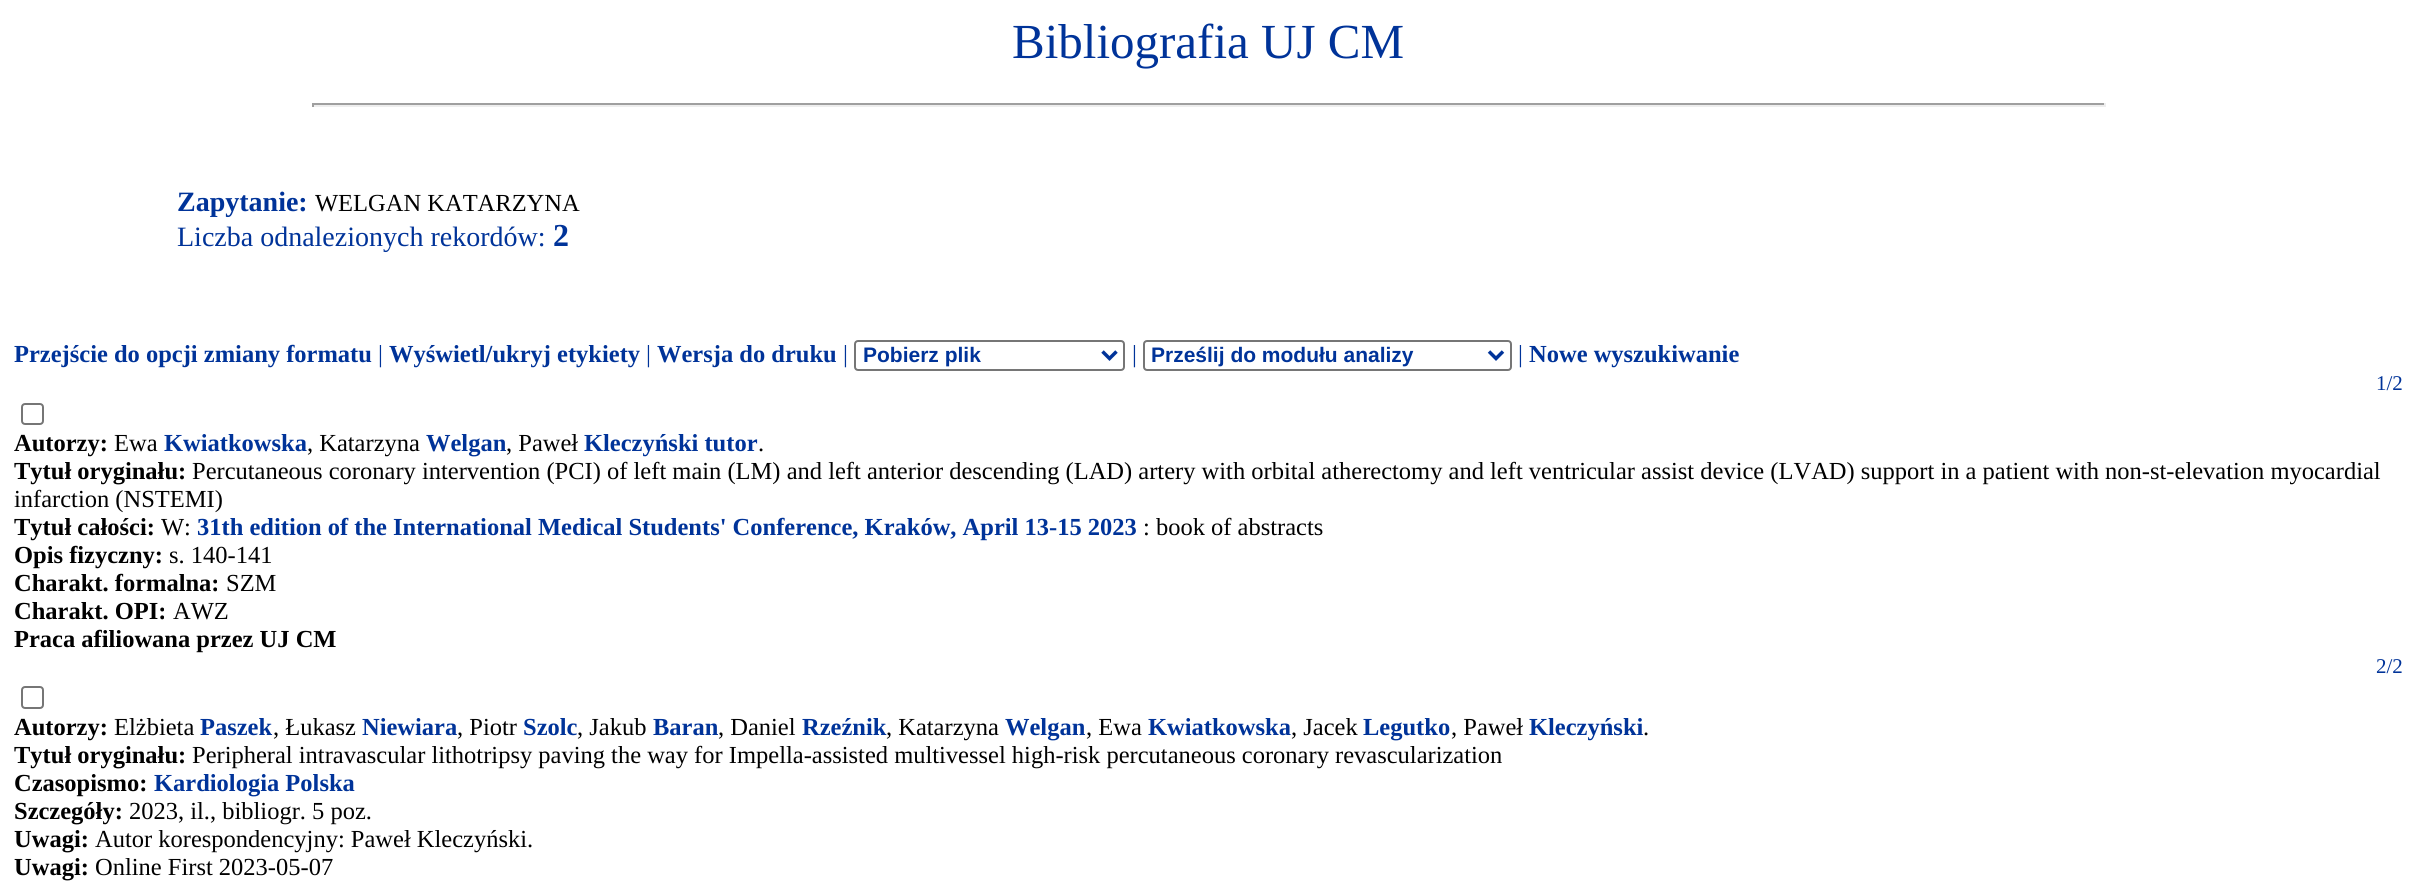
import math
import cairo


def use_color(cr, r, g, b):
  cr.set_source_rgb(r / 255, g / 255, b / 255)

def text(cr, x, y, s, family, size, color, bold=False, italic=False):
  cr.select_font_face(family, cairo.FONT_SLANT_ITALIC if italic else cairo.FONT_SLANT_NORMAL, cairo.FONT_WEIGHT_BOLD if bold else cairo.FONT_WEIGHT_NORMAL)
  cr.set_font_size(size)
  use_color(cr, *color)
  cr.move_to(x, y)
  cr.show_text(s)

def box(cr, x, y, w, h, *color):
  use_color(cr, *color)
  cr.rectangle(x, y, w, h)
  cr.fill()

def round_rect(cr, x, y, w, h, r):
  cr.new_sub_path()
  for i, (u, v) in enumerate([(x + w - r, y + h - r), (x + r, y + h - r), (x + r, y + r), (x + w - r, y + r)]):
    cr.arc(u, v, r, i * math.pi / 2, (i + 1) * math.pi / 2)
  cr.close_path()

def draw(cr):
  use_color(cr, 255, 255, 255)
  cr.paint()
  box(cr, 312, 103, 1793, 2, 159, 159, 159)
  box(cr, 2104, 103, 2, 4, 238, 238, 238)
  box(cr, 312, 105, 1793, 2, 238, 238, 238)
  box(cr, 312, 103, 2, 4, 159, 159, 159)
  round_rect(cr, 855, 341, 269, 29, 3)
  use_color(cr, 118, 118, 118)
  cr.stroke()
  cr.new_path()
  cr.move_to(1102.5, 351.5)
  cr.line_to(1109.5, 358.5)
  cr.line_to(1116.5, 351.5)
  use_color(cr, 0, 51, 153)
  cr.set_line_width(3.5)
  cr.stroke()
  round_rect(cr, 1144, 341, 367, 29, 3)
  use_color(cr, 118, 118, 118)
  cr.set_line_width(2)
  cr.stroke()
  cr.new_path()
  cr.move_to(1489, 351.5)
  cr.line_to(1496, 358.5)
  cr.line_to(1503, 351.5)
  use_color(cr, 0, 51, 153)
  cr.set_line_width(3.5)
  cr.stroke()
  round_rect(cr, 22, 404, 21, 20, 3)
  use_color(cr, 118, 118, 118)
  cr.set_line_width(2)
  cr.stroke()
  round_rect(cr, 22, 687, 21, 21, 3)
  cr.stroke()
  text(cr, 1012, 58, "Bibliografia UJ CM", "Liberation Serif", 49, (0, 51, 153))
  text(cr, 177, 211, "Zapytanie:", "Liberation Serif", 28, (0, 51, 153), bold=True)
  text(cr, 315, 211, "WELGAN KATARZYNA", "Liberation Serif", 24.5, (0, 0, 0))
  text(cr, 177, 246, "Liczba odnalezionych rekordów:", "Liberation Serif", 28, (0, 51, 153))
  text(cr, 553, 246, "2", "Liberation Serif", 32, (0, 51, 153), bold=True)
  text(cr, 14, 362, "Przejście do opcji zmiany formatu", "Liberation Serif", 24.5, (0, 51, 153), bold=True)
  text(cr, 378, 362, "|", "Liberation Serif", 24.5, (0, 51, 153))
  text(cr, 389, 362, "Wyświetl/ukryj etykiety", "Liberation Serif", 24.5, (0, 51, 153), bold=True)
  text(cr, 646, 362, "|", "Liberation Serif", 24.5, (0, 51, 153))
  text(cr, 657, 362, "Wersja do druku", "Liberation Serif", 24.5, (0, 51, 153), bold=True)
  text(cr, 843, 362, "|", "Liberation Serif", 24.5, (0, 51, 153))
  text(cr, 863, 362, "Pobierz plik", "Liberation Sans", 21, (0, 51, 153), bold=True)
  text(cr, 1132, 362, "|", "Liberation Serif", 24.5, (0, 51, 153))
  text(cr, 1151, 362, "Prześlij do modułu analizy", "Liberation Sans", 21, (0, 51, 153), bold=True)
  text(cr, 1518, 362, "|", "Liberation Serif", 24.5, (0, 51, 153))
  text(cr, 1529, 362, "Nowe wyszukiwanie", "Liberation Serif", 24.5, (0, 51, 153), bold=True)
  text(cr, 2376, 390, "1/2", "Liberation Serif", 21, (0, 51, 153))
  text(cr, 14, 451, "Autorzy:", "Liberation Serif", 24.5, (0, 0, 0), bold=True)
  text(cr, 114, 451, "Ewa", "Liberation Serif", 24.5, (0, 0, 0))
  text(cr, 164, 451, "Kwiatkowska", "Liberation Serif", 24.5, (0, 51, 153), bold=True)
  text(cr, 307, 451, ", Katarzyna", "Liberation Serif", 24.5, (0, 0, 0))
  text(cr, 426, 451, "Welgan", "Liberation Serif", 24.5, (0, 51, 153), bold=True)
  text(cr, 506, 451, ", Paweł", "Liberation Serif", 24.5, (0, 0, 0))
  text(cr, 584, 451, "Kleczyński tutor", "Liberation Serif", 24.5, (0, 51, 153), bold=True)
  text(cr, 758, 451, ".", "Liberation Serif", 24.5, (0, 0, 0))
  text(cr, 14, 479, "Tytuł oryginału:", "Liberation Serif", 24.5, (0, 0, 0), bold=True)
  text(cr, 192, 479, "Percutaneous coronary intervention (PCI) of left main (LM) and left anterior descending (LAD) artery with orbital atherectomy and left ventricular assist device (LVAD) support in a patient with non-st-elevation myocardial", "Liberation Serif", 24.5, (0, 0, 0))
  text(cr, 14, 507, "infarction (NSTEMI)", "Liberation Serif", 24.5, (0, 0, 0))
  text(cr, 14, 535, "Tytuł całości:", "Liberation Serif", 24.5, (0, 0, 0), bold=True)
  text(cr, 161, 535, "W:", "Liberation Serif", 24.5, (0, 0, 0))
  text(cr, 197, 535, "31th edition of the International Medical Students' Conference, Kraków, April 13-15 2023", "Liberation Serif", 24.5, (0, 51, 153), bold=True)
  text(cr, 1143, 535, ": book of abstracts", "Liberation Serif", 24.5, (0, 0, 0))
  text(cr, 14, 563, "Opis fizyczny:", "Liberation Serif", 24.5, (0, 0, 0), bold=True)
  text(cr, 169, 563, "s. 140-141", "Liberation Serif", 24.5, (0, 0, 0))
  text(cr, 14, 591, "Charakt. formalna:", "Liberation Serif", 24.5, (0, 0, 0), bold=True)
  text(cr, 226, 591, "SZM", "Liberation Serif", 24.5, (0, 0, 0))
  text(cr, 14, 619, "Charakt. OPI:", "Liberation Serif", 24.5, (0, 0, 0), bold=True)
  text(cr, 173, 619, "AWZ", "Liberation Serif", 24.5, (0, 0, 0))
  text(cr, 14, 647, "Praca afiliowana przez UJ CM", "Liberation Serif", 24.5, (0, 0, 0), bold=True)
  text(cr, 2376, 673, "2/2", "Liberation Serif", 21, (0, 51, 153))
  text(cr, 14, 735, "Autorzy:", "Liberation Serif", 24.5, (0, 0, 0), bold=True)
  text(cr, 114, 735, "Elżbieta", "Liberation Serif", 24.5, (0, 0, 0))
  text(cr, 200, 735, "Paszek", "Liberation Serif", 24.5, (0, 51, 153), bold=True)
  text(cr, 273, 735, ", Łukasz", "Liberation Serif", 24.5, (0, 0, 0))
  text(cr, 362, 735, "Niewiara", "Liberation Serif", 24.5, (0, 51, 153), bold=True)
  text(cr, 457, 735, ", Piotr", "Liberation Serif", 24.5, (0, 0, 0))
  text(cr, 523, 735, "Szolc", "Liberation Serif", 24.5, (0, 51, 153), bold=True)
  text(cr, 577, 735, ", Jakub", "Liberation Serif", 24.5, (0, 0, 0))
  text(cr, 653, 735, "Baran", "Liberation Serif", 24.5, (0, 51, 153), bold=True)
  text(cr, 718, 735, ", Daniel", "Liberation Serif", 24.5, (0, 0, 0))
  text(cr, 802, 735, "Rzeźnik", "Liberation Serif", 24.5, (0, 51, 153), bold=True)
  text(cr, 886, 735, ", Katarzyna", "Liberation Serif", 24.5, (0, 0, 0))
  text(cr, 1005, 735, "Welgan", "Liberation Serif", 24.5, (0, 51, 153), bold=True)
  text(cr, 1086, 735, ", Ewa", "Liberation Serif", 24.5, (0, 0, 0))
  text(cr, 1148, 735, "Kwiatkowska", "Liberation Serif", 24.5, (0, 51, 153), bold=True)
  text(cr, 1291, 735, ", Jacek", "Liberation Serif", 24.5, (0, 0, 0))
  text(cr, 1363, 735, "Legutko", "Liberation Serif", 24.5, (0, 51, 153), bold=True)
  text(cr, 1451, 735, ", Paweł", "Liberation Serif", 24.5, (0, 0, 0))
  text(cr, 1529, 735, "Kleczyński", "Liberation Serif", 24.5, (0, 51, 153), bold=True)
  text(cr, 1643, 735, ".", "Liberation Serif", 24.5, (0, 0, 0))
  text(cr, 14, 763, "Tytuł oryginału:", "Liberation Serif", 24.5, (0, 0, 0), bold=True)
  text(cr, 192, 763, "Peripheral intravascular lithotripsy paving the way for Impella-assisted multivessel high-risk percutaneous coronary revascularization", "Liberation Serif", 24.5, (0, 0, 0))
  text(cr, 14, 791, "Czasopismo:", "Liberation Serif", 24.5, (0, 0, 0), bold=True)
  text(cr, 154, 791, "Kardiologia Polska", "Liberation Serif", 24.5, (0, 51, 153), bold=True)
  text(cr, 14, 819, "Szczegóły:", "Liberation Serif", 24.5, (0, 0, 0), bold=True)
  text(cr, 129, 819, "2023, il., bibliogr. 5 poz.", "Liberation Serif", 24.5, (0, 0, 0))
  text(cr, 14, 847, "Uwagi:", "Liberation Serif", 24.5, (0, 0, 0), bold=True)
  text(cr, 95, 847, "Autor korespondencyjny: Paweł Kleczyński.", "Liberation Serif", 24.5, (0, 0, 0))
  text(cr, 14, 875, "Uwagi:", "Liberation Serif", 24.5, (0, 0, 0), bold=True)
  text(cr, 95, 875, "Online First 2023-05-07", "Liberation Serif", 24.5, (0, 0, 0))


surface = cairo.ImageSurface(cairo.FORMAT_RGB24, 2416, 884)
cr = cairo.Context(surface)
options = cairo.FontOptions()
options.set_hint_metrics(cairo.HINT_METRICS_OFF)
options.set_hint_style(cairo.HINT_STYLE_NONE)
cr.set_font_options(options)
cr.set_miter_limit(4)
draw(cr)
surface.write_to_png("out.png")
